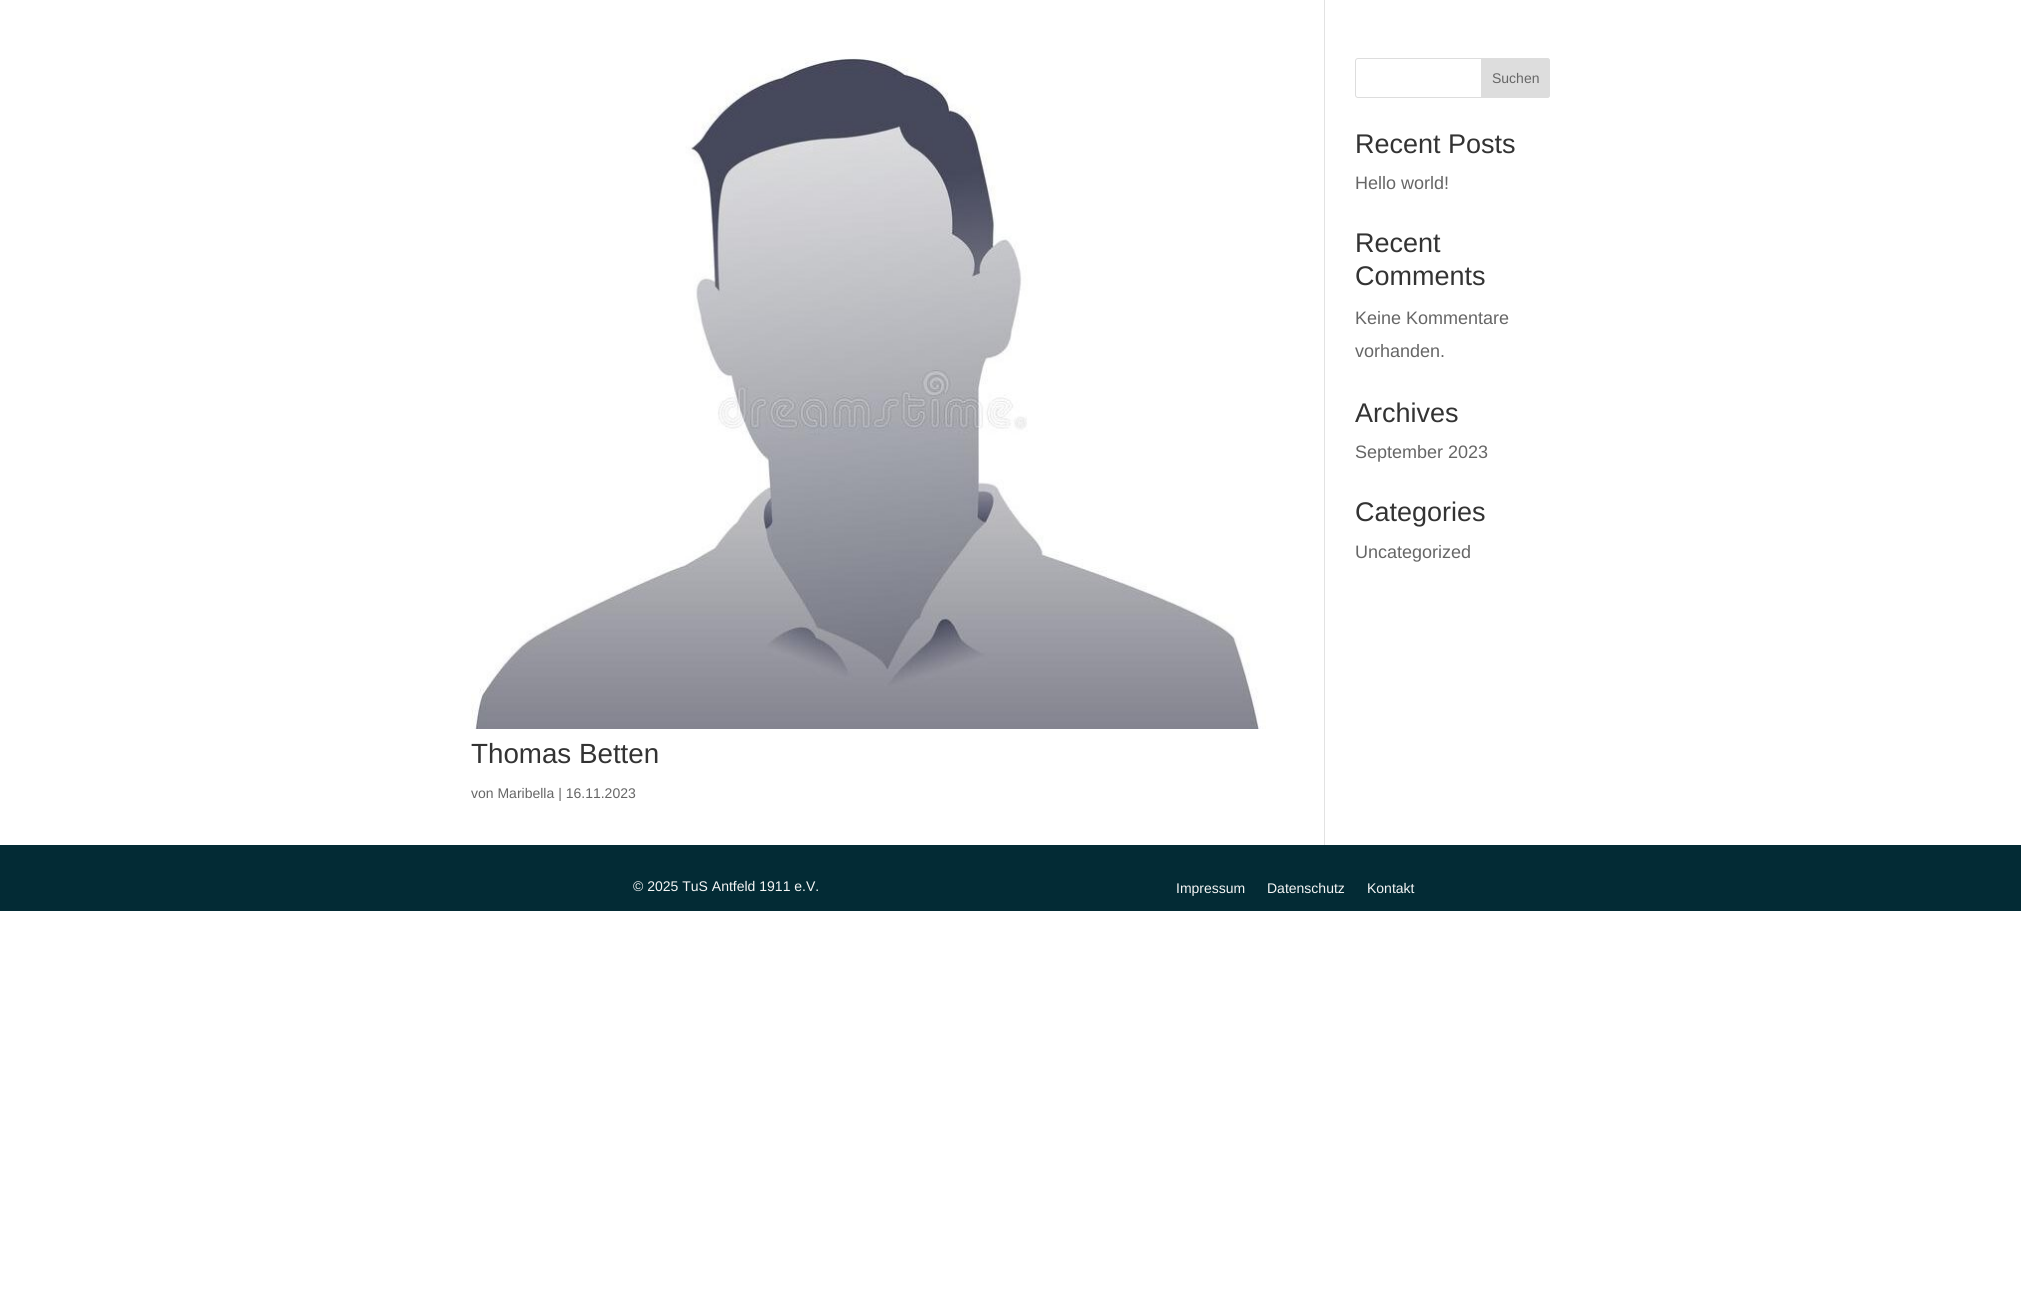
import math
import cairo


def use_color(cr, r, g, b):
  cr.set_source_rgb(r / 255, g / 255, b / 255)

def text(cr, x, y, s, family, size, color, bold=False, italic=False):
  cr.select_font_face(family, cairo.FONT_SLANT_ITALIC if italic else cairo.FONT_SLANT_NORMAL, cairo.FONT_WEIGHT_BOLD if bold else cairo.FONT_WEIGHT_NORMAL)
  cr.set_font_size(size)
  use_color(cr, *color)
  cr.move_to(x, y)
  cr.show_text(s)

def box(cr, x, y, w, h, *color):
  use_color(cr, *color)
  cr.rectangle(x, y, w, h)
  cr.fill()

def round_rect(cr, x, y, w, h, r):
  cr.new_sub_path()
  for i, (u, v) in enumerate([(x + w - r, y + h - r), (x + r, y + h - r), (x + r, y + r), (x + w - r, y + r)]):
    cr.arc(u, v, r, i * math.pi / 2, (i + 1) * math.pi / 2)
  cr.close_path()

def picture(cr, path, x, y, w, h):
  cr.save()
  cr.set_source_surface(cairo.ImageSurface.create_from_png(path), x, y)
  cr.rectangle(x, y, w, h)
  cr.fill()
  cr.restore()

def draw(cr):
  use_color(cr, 255, 255, 255)
  cr.paint()
  box(cr, 1324, 0, 1, 845, 226, 226, 226)
  round_rect(cr, 1355.5, 58.5, 194, 39, 2.5)
  use_color(cr, 221, 221, 221)
  cr.set_line_width(1)
  cr.stroke()
  cr.new_path()
  cr.move_to(1481.5, 58.5)
  cr.line_to(1547, 58.5)
  cr.curve_to(1548.5, 58.5, 1549.5, 59.5, 1549.5, 61)
  cr.line_to(1549.5, 95)
  cr.curve_to(1549.5, 96.5, 1548.5, 97.5, 1547, 97.5)
  cr.line_to(1481.5, 97.5)
  cr.close_path()
  cr.fill_preserve()
  cr.stroke()
  picture(cr, "img_01.png", 471, 58, 795, 671)
  box(cr, 0, 845, 2021, 66, 3, 43, 53)
  text(cr, 1492, 83, "Suchen", "Liberation Sans", 14, (102, 102, 102))
  text(cr, 1355, 153, "Recent Posts", "Liberation Sans", 27, (51, 51, 51))
  text(cr, 1355, 189, "Hello world!", "Liberation Sans", 18, (102, 102, 102))
  text(cr, 1355, 252, "Recent", "Liberation Sans", 27, (51, 51, 51))
  text(cr, 1355, 285, "Comments", "Liberation Sans", 27, (51, 51, 51))
  text(cr, 1355, 324, "Keine Kommentare", "Liberation Sans", 18, (102, 102, 102))
  text(cr, 1355, 357, "vorhanden.", "Liberation Sans", 18, (102, 102, 102))
  text(cr, 1355, 422, "Archives", "Liberation Sans", 27, (51, 51, 51))
  text(cr, 1355, 458, "September 2023", "Liberation Sans", 18, (102, 102, 102))
  text(cr, 1355, 521, "Categories", "Liberation Sans", 27, (51, 51, 51))
  text(cr, 1355, 558, "Uncategorized", "Liberation Sans", 18, (102, 102, 102))
  text(cr, 471, 763, "Thomas Betten", "Liberation Sans", 27.75, (51, 51, 51))
  text(cr, 471, 798, "von Maribella | 16.11.2023", "Liberation Sans", 14, (102, 102, 102))
  text(cr, 633, 891, "© 2025 TuS Antfeld 1911 e.V.", "Liberation Sans", 14, (246, 246, 246))
  text(cr, 1176, 893, "Impressum", "Liberation Sans", 14, (246, 246, 246))
  text(cr, 1267, 893, "Datenschutz", "Liberation Sans", 14, (246, 246, 246))
  text(cr, 1367, 893, "Kontakt", "Liberation Sans", 14, (246, 246, 246))


surface = cairo.ImageSurface(cairo.FORMAT_RGB24, 2021, 1303)
cr = cairo.Context(surface)
options = cairo.FontOptions()
options.set_hint_metrics(cairo.HINT_METRICS_OFF)
options.set_hint_style(cairo.HINT_STYLE_NONE)
cr.set_font_options(options)
cr.set_miter_limit(4)
draw(cr)
surface.write_to_png("out.png")
